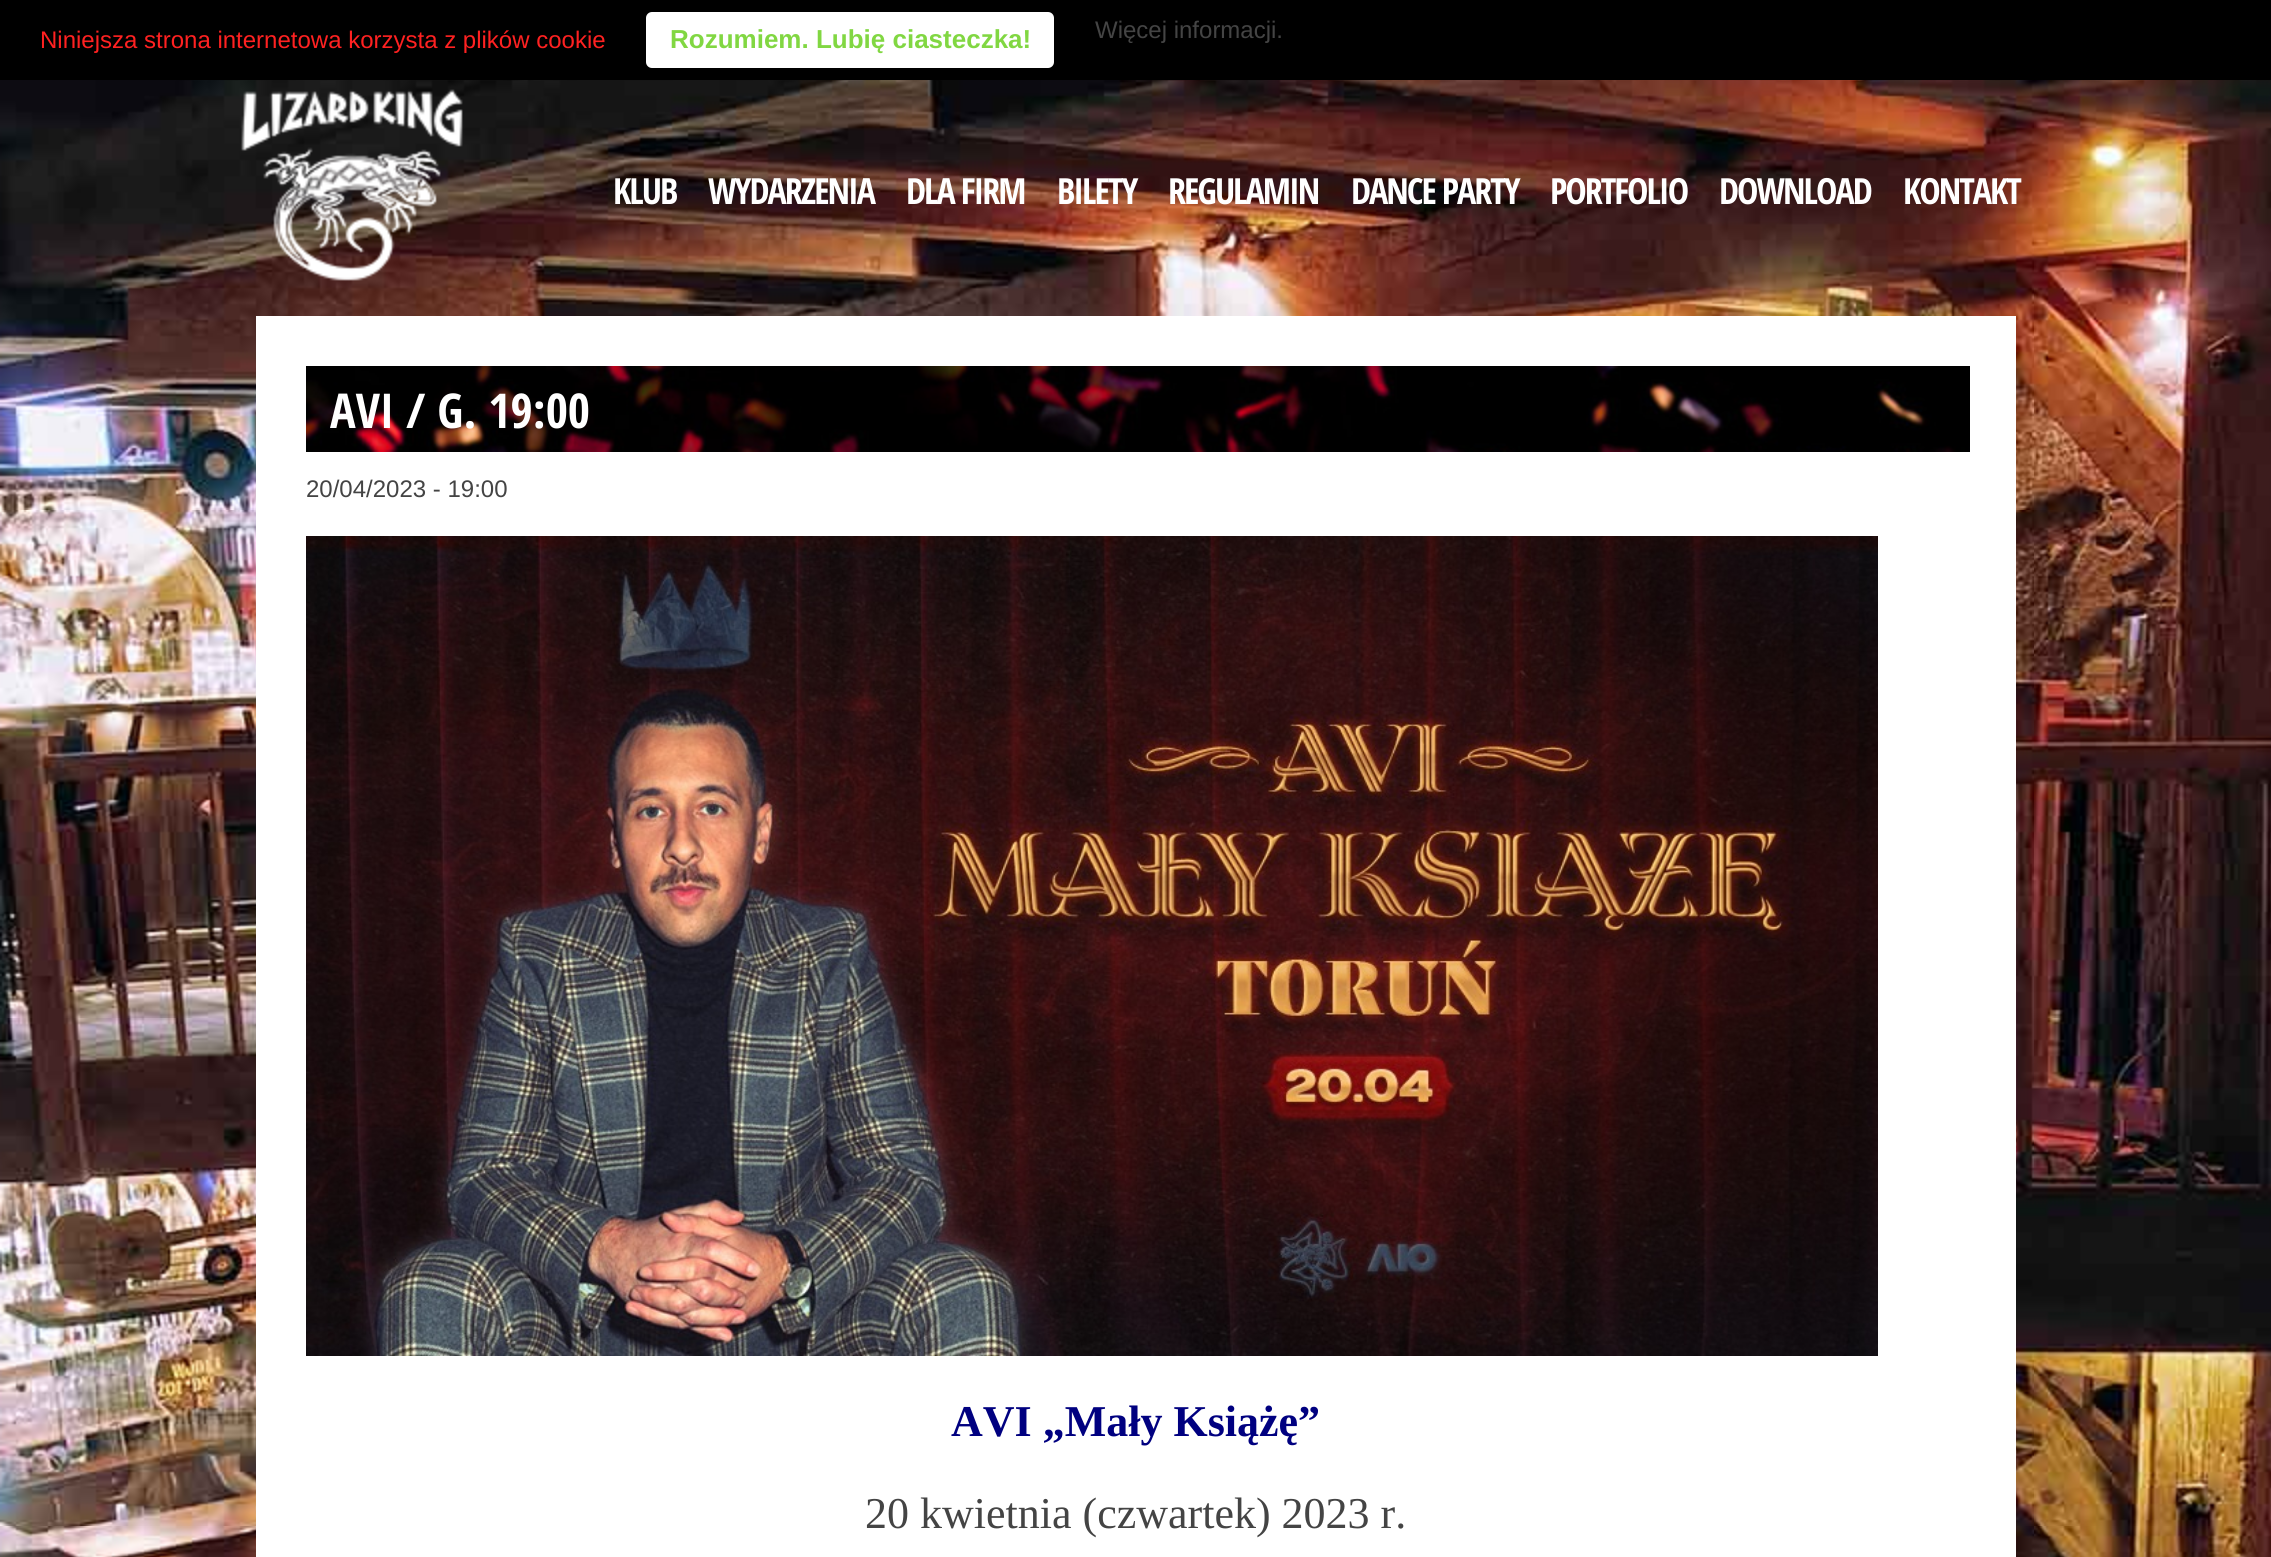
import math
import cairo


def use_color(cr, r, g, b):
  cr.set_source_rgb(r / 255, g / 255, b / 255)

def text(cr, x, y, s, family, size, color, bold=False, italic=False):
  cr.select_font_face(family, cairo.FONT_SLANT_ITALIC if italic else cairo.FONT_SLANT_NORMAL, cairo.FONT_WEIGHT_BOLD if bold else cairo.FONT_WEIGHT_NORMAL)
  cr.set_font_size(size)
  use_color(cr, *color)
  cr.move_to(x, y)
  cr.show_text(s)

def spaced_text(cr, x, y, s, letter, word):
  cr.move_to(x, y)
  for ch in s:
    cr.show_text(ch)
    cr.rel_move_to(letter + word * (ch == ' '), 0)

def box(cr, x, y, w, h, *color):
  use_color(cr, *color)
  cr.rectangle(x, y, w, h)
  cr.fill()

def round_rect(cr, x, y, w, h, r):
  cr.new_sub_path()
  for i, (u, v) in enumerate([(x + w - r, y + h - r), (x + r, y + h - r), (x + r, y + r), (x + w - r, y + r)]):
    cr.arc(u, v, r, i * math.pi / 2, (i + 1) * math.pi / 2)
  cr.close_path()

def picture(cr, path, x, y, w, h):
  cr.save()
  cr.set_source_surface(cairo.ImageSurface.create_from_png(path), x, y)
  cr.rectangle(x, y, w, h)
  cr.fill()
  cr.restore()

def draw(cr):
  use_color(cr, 255, 255, 255)
  cr.paint()
  picture(cr, "img_01.png", 0, 80, 2271, 1477)
  box(cr, 0, 0, 2271, 80, 0, 0, 0)
  use_color(cr, 255, 255, 255)
  round_rect(cr, 646, 12, 408, 56, 6)
  cr.fill()
  picture(cr, "img_02.png", 241, 89, 222, 192)
  box(cr, 256, 316, 1760, 1241, 255, 255, 255)
  picture(cr, "img_03.png", 306, 366, 1664, 86)
  picture(cr, "img_04.png", 306, 536, 1572, 820)
  text(cr, 40, 48, "Niniejsza strona internetowa korzysta z plików cookie", "Liberation Sans", 24, (255, 33, 33))
  text(cr, 670, 48, "Rozumiem. Lubię ciasteczka!", "Liberation Sans", 26, (129, 215, 66), bold=True)
  text(cr, 1095, 38, "Więcej informacji.", "Liberation Sans", 24, (68, 68, 68))
  cr.select_font_face("Open Sans Condensed", cairo.FONT_SLANT_NORMAL, cairo.FONT_WEIGHT_BOLD)
  cr.set_font_size(36)
  use_color(cr, 255, 255, 255)
  spaced_text(cr, 613, 204, "KLUB", -2, 0)
  spaced_text(cr, 708, 204, "WYDARZENIA", -2, 0)
  spaced_text(cr, 906, 204, "DLA FIRM", -2, 0)
  spaced_text(cr, 1057, 204, "BILETY", -2, 0)
  spaced_text(cr, 1168, 204, "REGULAMIN", -2, 0)
  spaced_text(cr, 1351, 204, "DANCE PARTY", -2, 0)
  spaced_text(cr, 1550, 204, "PORTFOLIO", -2, 0)
  spaced_text(cr, 1719, 204, "DOWNLOAD", -2, 0)
  spaced_text(cr, 1903, 204, "KONTAKT", -2, 0)
  text(cr, 330, 428, "AVI / G. 19:00", "Open Sans Condensed", 48, (255, 255, 255), bold=True)
  text(cr, 306, 497, "20/04/2023 - 19:00", "Liberation Sans", 24, (68, 68, 68))
  text(cr, 951, 1436, "AVI „Mały Książę”", "Liberation Serif", 44, (0, 0, 128), bold=True)
  text(cr, 865, 1528, "20 kwietnia (czwartek) 2023 r.", "Liberation Serif", 44, (68, 68, 68))


surface = cairo.ImageSurface(cairo.FORMAT_RGB24, 2271, 1557)
cr = cairo.Context(surface)
options = cairo.FontOptions()
options.set_hint_metrics(cairo.HINT_METRICS_OFF)
options.set_hint_style(cairo.HINT_STYLE_NONE)
cr.set_font_options(options)
cr.set_miter_limit(4)
draw(cr)
surface.write_to_png("out.png")
